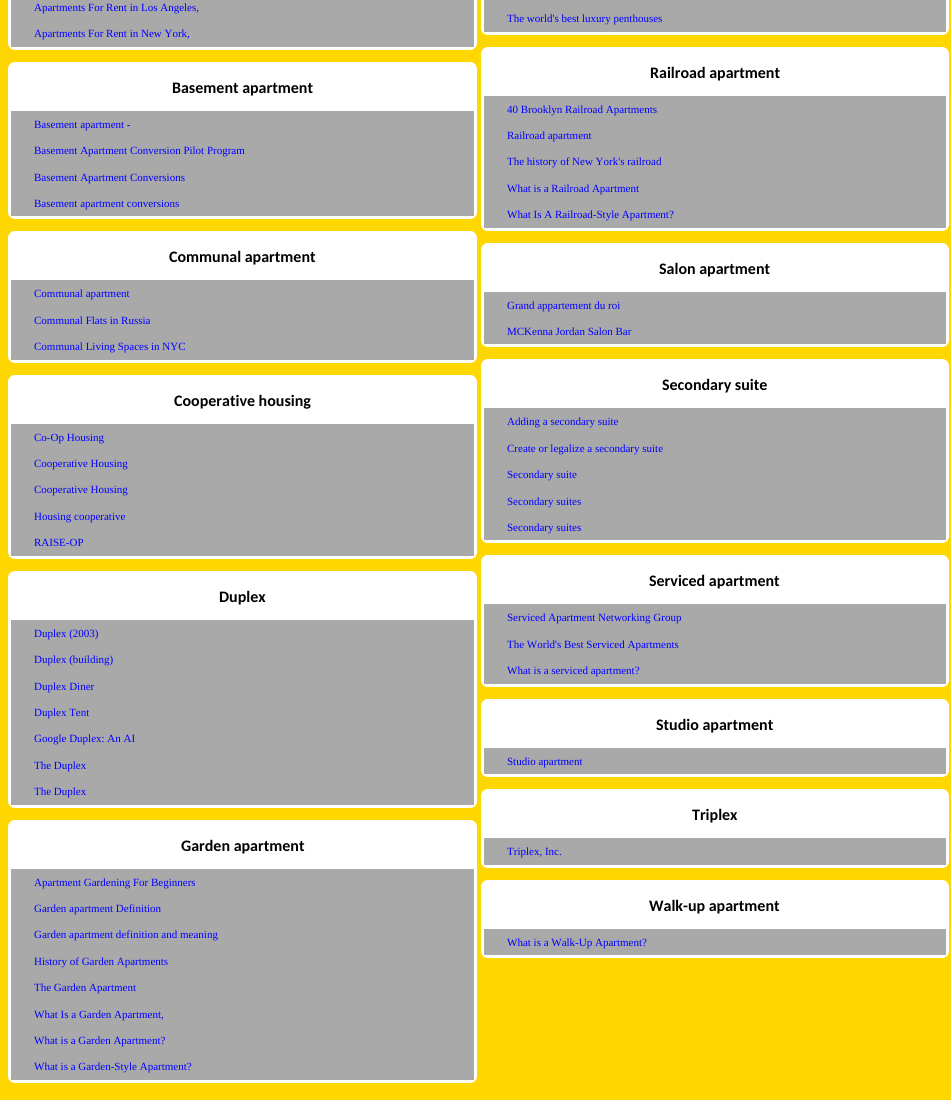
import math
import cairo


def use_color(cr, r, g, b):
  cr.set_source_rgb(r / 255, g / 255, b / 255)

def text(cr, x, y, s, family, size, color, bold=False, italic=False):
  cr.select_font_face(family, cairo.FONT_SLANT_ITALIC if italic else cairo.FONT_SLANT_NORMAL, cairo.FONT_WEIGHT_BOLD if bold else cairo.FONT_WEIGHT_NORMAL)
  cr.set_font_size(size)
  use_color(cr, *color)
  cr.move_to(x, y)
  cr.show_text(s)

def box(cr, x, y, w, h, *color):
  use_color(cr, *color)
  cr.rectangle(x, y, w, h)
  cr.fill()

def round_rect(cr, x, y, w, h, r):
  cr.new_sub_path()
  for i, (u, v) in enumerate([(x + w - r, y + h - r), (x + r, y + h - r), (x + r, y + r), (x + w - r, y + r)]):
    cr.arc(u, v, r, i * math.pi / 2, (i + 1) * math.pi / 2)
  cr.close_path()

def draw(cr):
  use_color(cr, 255, 215, 0)
  cr.paint()
  round_rect(cr, 9.5, -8.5, 466, 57, 5.5)
  use_color(cr, 255, 255, 255)
  cr.set_line_width(3)
  cr.stroke()
  box(cr, 11, 0, 463, 47, 169, 169, 169)
  round_rect(cr, 482.5, -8.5, 465, 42, 5.5)
  use_color(cr, 255, 255, 255)
  cr.stroke()
  box(cr, 484, 0, 462, 32, 169, 169, 169)
  use_color(cr, 255, 255, 255)
  round_rect(cr, 9.5, 63.5, 466, 154, 5.5)
  cr.fill_preserve()
  cr.stroke()
  box(cr, 11, 111, 463, 105, 169, 169, 169)
  use_color(cr, 255, 255, 255)
  round_rect(cr, 482.5, 48.5, 465, 181, 5.5)
  cr.fill_preserve()
  cr.stroke()
  box(cr, 484, 96, 462, 132, 169, 169, 169)
  use_color(cr, 255, 255, 255)
  round_rect(cr, 9.5, 232.5, 466, 129, 5.5)
  cr.fill_preserve()
  cr.stroke()
  box(cr, 11, 280, 463, 80, 169, 169, 169)
  use_color(cr, 255, 255, 255)
  round_rect(cr, 482.5, 244.5, 465, 101, 5.5)
  cr.fill_preserve()
  cr.stroke()
  box(cr, 484, 292, 462, 52, 169, 169, 169)
  use_color(cr, 255, 255, 255)
  round_rect(cr, 9.5, 376.5, 466, 181, 5.5)
  cr.fill_preserve()
  cr.stroke()
  box(cr, 11, 424, 463, 132, 169, 169, 169)
  use_color(cr, 255, 255, 255)
  round_rect(cr, 482.5, 360.5, 465, 181, 5.5)
  cr.fill_preserve()
  cr.stroke()
  box(cr, 484, 408, 462, 132, 169, 169, 169)
  use_color(cr, 255, 255, 255)
  round_rect(cr, 9.5, 572.5, 466, 234, 5.5)
  cr.fill_preserve()
  cr.stroke()
  box(cr, 11, 620, 463, 185, 169, 169, 169)
  use_color(cr, 255, 255, 255)
  round_rect(cr, 482.5, 556.5, 465, 129, 5.5)
  cr.fill_preserve()
  cr.stroke()
  box(cr, 484, 604, 462, 80, 169, 169, 169)
  use_color(cr, 255, 255, 255)
  round_rect(cr, 482.5, 700.5, 465, 75, 5.5)
  cr.fill_preserve()
  cr.stroke()
  box(cr, 484, 748, 462, 26, 169, 169, 169)
  use_color(cr, 255, 255, 255)
  round_rect(cr, 482.5, 790.5, 465, 76, 5.5)
  cr.fill_preserve()
  cr.stroke()
  box(cr, 484, 838, 462, 27, 169, 169, 169)
  use_color(cr, 255, 255, 255)
  round_rect(cr, 9.5, 821.5, 466, 260, 5.5)
  cr.fill_preserve()
  cr.stroke()
  box(cr, 11, 869, 463, 211, 169, 169, 169)
  use_color(cr, 255, 255, 255)
  round_rect(cr, 482.5, 881.5, 465, 75, 5.5)
  cr.fill_preserve()
  cr.stroke()
  box(cr, 484, 929, 462, 26, 169, 169, 169)
  text(cr, 34, 11, "Apartments For Rent in Los Angeles,", "Liberation Serif", 11, (0, 0, 255))
  text(cr, 34, 37, "Apartments For Rent in New York,", "Liberation Serif", 11, (0, 0, 255))
  text(cr, 507, 22, "The world's best luxury penthouses", "Liberation Serif", 11, (0, 0, 255))
  text(cr, 172, 93, "Basement apartment", "Carlito", 16, (0, 0, 0), bold=True)
  text(cr, 34, 128, "Basement apartment -", "Liberation Serif", 11, (0, 0, 255))
  text(cr, 34, 154, "Basement Apartment Conversion Pilot Program", "Liberation Serif", 11, (0, 0, 255))
  text(cr, 34, 181, "Basement Apartment Conversions", "Liberation Serif", 11, (0, 0, 255))
  text(cr, 34, 207, "Basement apartment conversions", "Liberation Serif", 11, (0, 0, 255))
  text(cr, 650, 78, "Railroad apartment", "Carlito", 16, (0, 0, 0), bold=True)
  text(cr, 507, 113, "40 Brooklyn Railroad Apartments", "Liberation Serif", 11, (0, 0, 255))
  text(cr, 507, 139, "Railroad apartment", "Liberation Serif", 11, (0, 0, 255))
  text(cr, 507, 165, "The history of New York's railroad", "Liberation Serif", 11, (0, 0, 255))
  text(cr, 507, 192, "What is a Railroad Apartment", "Liberation Serif", 11, (0, 0, 255))
  text(cr, 507, 218, "What Is A Railroad-Style Apartment?", "Liberation Serif", 11, (0, 0, 255))
  text(cr, 169, 262, "Communal apartment", "Carlito", 16, (0, 0, 0), bold=True)
  text(cr, 34, 297, "Communal apartment", "Liberation Serif", 11, (0, 0, 255))
  text(cr, 34, 324, "Communal Flats in Russia", "Liberation Serif", 11, (0, 0, 255))
  text(cr, 34, 350, "Communal Living Spaces in NYC", "Liberation Serif", 11, (0, 0, 255))
  text(cr, 659, 274, "Salon apartment", "Carlito", 16, (0, 0, 0), bold=True)
  text(cr, 507, 309, "Grand appartement du roi", "Liberation Serif", 11, (0, 0, 255))
  text(cr, 507, 335, "MCKenna Jordan Salon Bar", "Liberation Serif", 11, (0, 0, 255))
  text(cr, 174, 406, "Cooperative housing", "Carlito", 16, (0, 0, 0), bold=True)
  text(cr, 34, 441, "Co-Op Housing", "Liberation Serif", 11, (0, 0, 255))
  text(cr, 34, 467, "Cooperative Housing", "Liberation Serif", 11, (0, 0, 255))
  text(cr, 34, 493, "Cooperative Housing", "Liberation Serif", 11, (0, 0, 255))
  text(cr, 34, 520, "Housing cooperative", "Liberation Serif", 11, (0, 0, 255))
  text(cr, 34, 546, "RAISE-OP", "Liberation Serif", 11, (0, 0, 255))
  text(cr, 662, 390, "Secondary suite", "Carlito", 16, (0, 0, 0), bold=True)
  text(cr, 507, 425, "Adding a secondary suite", "Liberation Serif", 11, (0, 0, 255))
  text(cr, 507, 452, "Create or legalize a secondary suite", "Liberation Serif", 11, (0, 0, 255))
  text(cr, 507, 478, "Secondary suite", "Liberation Serif", 11, (0, 0, 255))
  text(cr, 507, 505, "Secondary suites", "Liberation Serif", 11, (0, 0, 255))
  text(cr, 507, 531, "Secondary suites", "Liberation Serif", 11, (0, 0, 255))
  text(cr, 219, 602, "Duplex", "Carlito", 16, (0, 0, 0), bold=True)
  text(cr, 34, 637, "Duplex (2003)", "Liberation Serif", 11, (0, 0, 255))
  text(cr, 34, 663, "Duplex (building)", "Liberation Serif", 11, (0, 0, 255))
  text(cr, 34, 690, "Duplex Diner", "Liberation Serif", 11, (0, 0, 255))
  text(cr, 34, 716, "Duplex Tent", "Liberation Serif", 11, (0, 0, 255))
  text(cr, 34, 742, "Google Duplex: An AI", "Liberation Serif", 11, (0, 0, 255))
  text(cr, 34, 769, "The Duplex", "Liberation Serif", 11, (0, 0, 255))
  text(cr, 34, 795, "The Duplex", "Liberation Serif", 11, (0, 0, 255))
  text(cr, 649, 586, "Serviced apartment", "Carlito", 16, (0, 0, 0), bold=True)
  text(cr, 507, 621, "Serviced Apartment Networking Group", "Liberation Serif", 11, (0, 0, 255))
  text(cr, 507, 648, "The World's Best Serviced Apartments", "Liberation Serif", 11, (0, 0, 255))
  text(cr, 507, 674, "What is a serviced apartment?", "Liberation Serif", 11, (0, 0, 255))
  text(cr, 656, 730, "Studio apartment", "Carlito", 16, (0, 0, 0), bold=True)
  text(cr, 507, 765, "Studio apartment", "Liberation Serif", 11, (0, 0, 255))
  text(cr, 692, 820, "Triplex", "Carlito", 16, (0, 0, 0), bold=True)
  text(cr, 507, 855, "Triplex, Inc.", "Liberation Serif", 11, (0, 0, 255))
  text(cr, 181, 851, "Garden apartment", "Carlito", 16, (0, 0, 0), bold=True)
  text(cr, 34, 886, "Apartment Gardening For Beginners", "Liberation Serif", 11, (0, 0, 255))
  text(cr, 34, 912, "Garden apartment Definition", "Liberation Serif", 11, (0, 0, 255))
  text(cr, 34, 938, "Garden apartment definition and meaning", "Liberation Serif", 11, (0, 0, 255))
  text(cr, 34, 965, "History of Garden Apartments", "Liberation Serif", 11, (0, 0, 255))
  text(cr, 34, 991, "The Garden Apartment", "Liberation Serif", 11, (0, 0, 255))
  text(cr, 34, 1018, "What Is a Garden Apartment,", "Liberation Serif", 11, (0, 0, 255))
  text(cr, 34, 1044, "What is a Garden Apartment?", "Liberation Serif", 11, (0, 0, 255))
  text(cr, 34, 1070, "What is a Garden-Style Apartment?", "Liberation Serif", 11, (0, 0, 255))
  text(cr, 649, 911, "Walk-up apartment", "Carlito", 16, (0, 0, 0), bold=True)
  text(cr, 507, 946, "What is a Walk-Up Apartment?", "Liberation Serif", 11, (0, 0, 255))


surface = cairo.ImageSurface(cairo.FORMAT_RGB24, 951, 1100)
cr = cairo.Context(surface)
options = cairo.FontOptions()
options.set_hint_metrics(cairo.HINT_METRICS_OFF)
options.set_hint_style(cairo.HINT_STYLE_NONE)
cr.set_font_options(options)
cr.set_miter_limit(4)
draw(cr)
surface.write_to_png("out.png")
